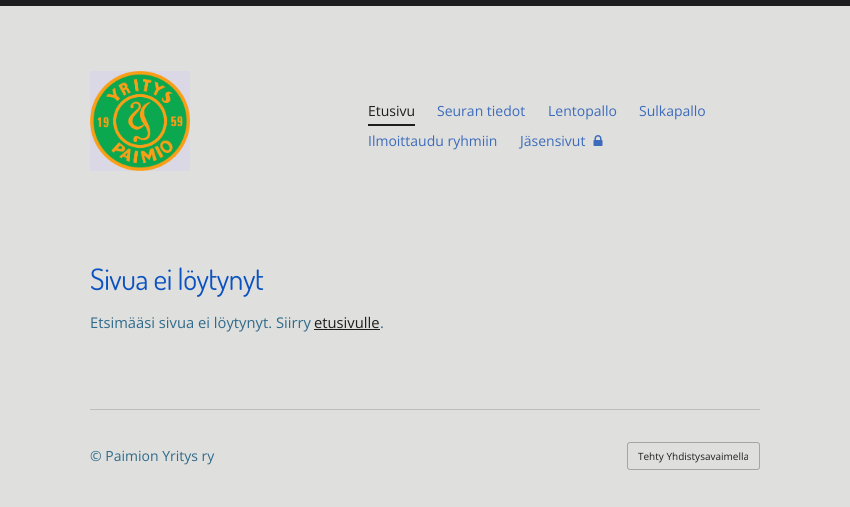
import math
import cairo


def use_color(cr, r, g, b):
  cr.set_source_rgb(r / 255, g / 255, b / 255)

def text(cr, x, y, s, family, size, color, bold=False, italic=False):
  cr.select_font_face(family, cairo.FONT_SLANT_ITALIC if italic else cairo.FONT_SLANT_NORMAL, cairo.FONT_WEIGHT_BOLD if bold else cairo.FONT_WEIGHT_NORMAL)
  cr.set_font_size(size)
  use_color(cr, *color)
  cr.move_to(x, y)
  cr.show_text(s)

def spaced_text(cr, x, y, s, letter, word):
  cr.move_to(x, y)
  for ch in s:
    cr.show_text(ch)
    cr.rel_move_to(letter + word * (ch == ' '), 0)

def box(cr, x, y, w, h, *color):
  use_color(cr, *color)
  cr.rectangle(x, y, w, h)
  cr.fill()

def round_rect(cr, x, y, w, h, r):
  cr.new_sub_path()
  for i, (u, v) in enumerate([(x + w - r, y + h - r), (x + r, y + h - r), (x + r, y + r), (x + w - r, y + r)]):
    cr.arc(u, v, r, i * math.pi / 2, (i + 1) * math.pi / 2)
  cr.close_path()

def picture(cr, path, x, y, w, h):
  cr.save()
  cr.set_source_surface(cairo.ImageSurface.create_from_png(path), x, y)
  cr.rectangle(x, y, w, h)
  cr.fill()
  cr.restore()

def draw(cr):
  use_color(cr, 223, 223, 221)
  cr.paint()
  box(cr, 0, 0, 850, 6, 31, 30, 30)
  picture(cr, "img_01.png", 90, 71, 100, 100)
  box(cr, 368, 124, 47, 2, 31, 30, 30)
  picture(cr, "img_02.png", 593, 135, 10, 11)
  box(cr, 314, 329, 66, 1, 31, 30, 30)
  box(cr, 90, 409, 670, 1, 190, 190, 188)
  round_rect(cr, 627.5, 442.5, 132, 27, 2.5)
  use_color(cr, 165, 165, 164)
  cr.set_line_width(1)
  cr.stroke()
  text(cr, 368, 116, "Etusivu", "Open Sans", 14, (31, 30, 30))
  text(cr, 437, 116, "Seuran tiedot", "Open Sans", 14, (60, 107, 188))
  text(cr, 548, 116, "Lentopallo", "Open Sans", 14, (60, 107, 188))
  text(cr, 639, 116, "Sulkapallo", "Open Sans", 14, (60, 107, 188))
  text(cr, 368, 146, "Ilmoittaudu ryhmiin", "Open Sans", 14, (60, 107, 188))
  text(cr, 520, 146, "Jäsensivut", "Open Sans", 14, (60, 107, 188))
  cr.select_font_face("Dosis")
  cr.set_font_size(29.5)
  use_color(cr, 10, 82, 193)
  spaced_text(cr, 90, 290, "Sivua ei löytynyt", -0.4, 0)
  text(cr, 90, 328, "Etsimääsi sivua ei löytynyt. Siirry", "Open Sans", 14.75, (47, 106, 138))
  text(cr, 314, 328, "etusivulle", "Open Sans", 14.75, (31, 30, 30))
  text(cr, 380, 328, ".", "Open Sans", 14.75, (47, 106, 138))
  text(cr, 90, 461, "© Paimion Yritys ry", "Open Sans", 14, (47, 106, 138))
  text(cr, 638, 460, "Tehty Yhdistysavaimella", "Open Sans", 10, (31, 30, 30))


surface = cairo.ImageSurface(cairo.FORMAT_RGB24, 850, 507)
cr = cairo.Context(surface)
options = cairo.FontOptions()
options.set_hint_metrics(cairo.HINT_METRICS_OFF)
options.set_hint_style(cairo.HINT_STYLE_NONE)
cr.set_font_options(options)
cr.set_miter_limit(4)
draw(cr)
surface.write_to_png("out.png")
